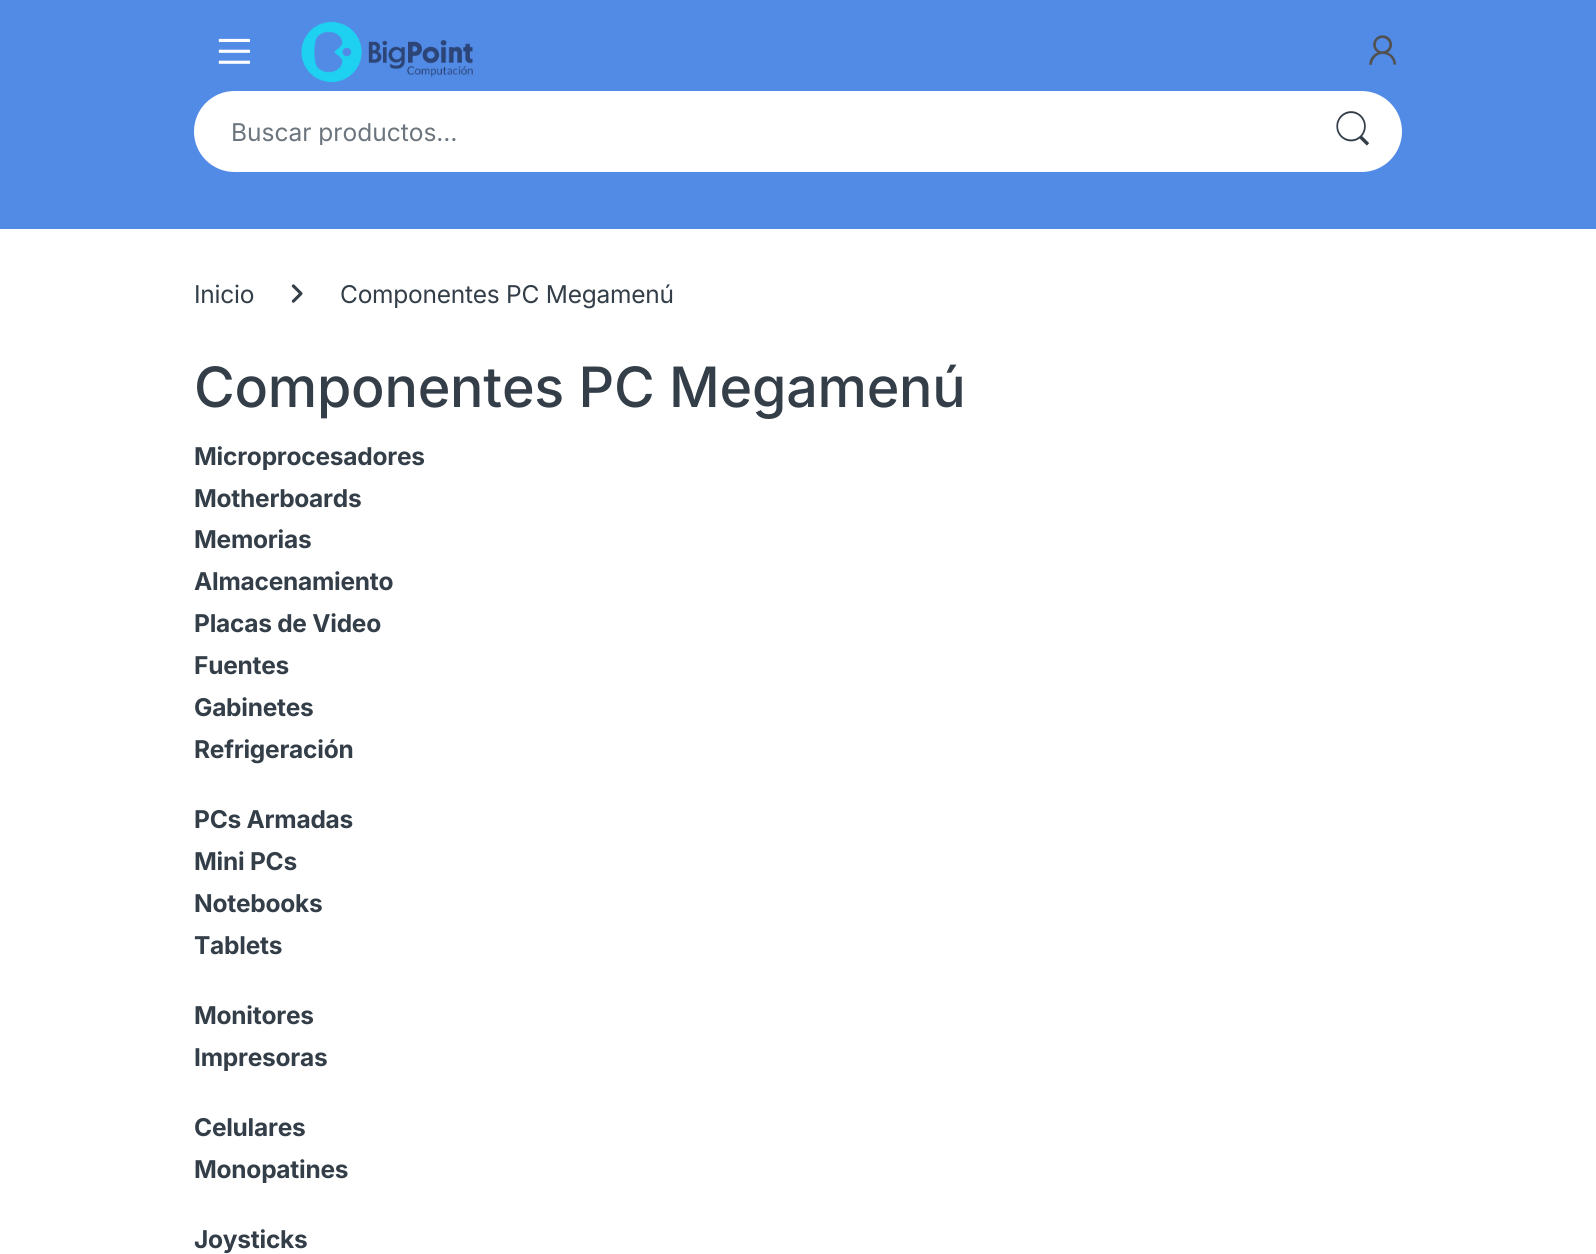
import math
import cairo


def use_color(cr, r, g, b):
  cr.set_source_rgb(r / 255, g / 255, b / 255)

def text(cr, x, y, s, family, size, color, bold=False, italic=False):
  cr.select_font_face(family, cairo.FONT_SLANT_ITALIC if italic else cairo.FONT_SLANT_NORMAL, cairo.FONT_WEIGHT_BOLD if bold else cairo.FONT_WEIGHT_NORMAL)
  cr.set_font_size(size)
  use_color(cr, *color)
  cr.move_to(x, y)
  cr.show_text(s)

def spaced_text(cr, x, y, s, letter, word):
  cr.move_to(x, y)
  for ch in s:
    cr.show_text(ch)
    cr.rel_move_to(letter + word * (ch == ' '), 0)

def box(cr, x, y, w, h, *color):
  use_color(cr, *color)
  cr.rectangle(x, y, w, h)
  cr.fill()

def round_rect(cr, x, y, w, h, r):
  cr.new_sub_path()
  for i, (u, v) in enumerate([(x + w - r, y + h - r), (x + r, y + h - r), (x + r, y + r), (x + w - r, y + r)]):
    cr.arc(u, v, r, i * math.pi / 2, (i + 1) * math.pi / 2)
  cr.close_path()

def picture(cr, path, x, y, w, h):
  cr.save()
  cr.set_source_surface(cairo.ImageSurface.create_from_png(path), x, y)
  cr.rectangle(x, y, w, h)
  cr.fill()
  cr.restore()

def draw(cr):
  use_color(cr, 255, 255, 255)
  cr.paint()
  box(cr, 0, 0, 1596, 229, 82, 139, 229)
  picture(cr, "img_01.png", 218, 38, 32, 26)
  picture(cr, "img_02.png", 301, 21, 172, 62)
  picture(cr, "img_03.png", 1369, 35, 28, 30)
  use_color(cr, 255, 255, 255)
  round_rect(cr, 194, 91, 1208, 81, 40.5)
  cr.fill()
  picture(cr, "img_04.png", 1336, 111, 34, 35)
  picture(cr, "img_05.png", 291, 284, 12, 19)
  cr.save()
  cr.rectangle(231, 116, 1012, 29)
  cr.clip()
  text(cr, 231, 141, "Buscar productos…", "Inter", 24.5, (108, 117, 125))
  cr.restore()
  cr.select_font_face("Inter")
  cr.set_font_size(24.5)
  use_color(cr, 51, 62, 72)
  spaced_text(cr, 194, 303, "Inicio", -0.25, 0)
  spaced_text(cr, 340, 303, "Componentes PC Megamenú", -0.25, 0)
  cr.select_font_face("Inter Medium")
  cr.set_font_size(55.6)
  spaced_text(cr, 194, 407, "Componentes PC Megamenú", -0.25, 0)
  cr.select_font_face("Inter", cairo.FONT_SLANT_NORMAL, cairo.FONT_WEIGHT_BOLD)
  cr.set_font_size(24.5)
  spaced_text(cr, 194, 465, "Microprocesadores", -0.25, 0)
  spaced_text(cr, 194, 507, "Motherboards", -0.25, 0)
  spaced_text(cr, 194, 548, "Memorias", -0.25, 0)
  spaced_text(cr, 194, 590, "Almacenamiento", -0.25, 0)
  spaced_text(cr, 194, 632, "Placas de Video", -0.25, 0)
  spaced_text(cr, 194, 674, "Fuentes", -0.25, 0)
  spaced_text(cr, 194, 716, "Gabinetes", -0.25, 0)
  spaced_text(cr, 194, 758, "Refrigeración", -0.25, 0)
  spaced_text(cr, 194, 828, "PCs Armadas", -0.25, 0)
  spaced_text(cr, 194, 870, "Mini PCs", -0.25, 0)
  spaced_text(cr, 194, 912, "Notebooks", -0.25, 0)
  spaced_text(cr, 194, 954, "Tablets", -0.25, 0)
  spaced_text(cr, 194, 1024, "Monitores", -0.25, 0)
  spaced_text(cr, 194, 1066, "Impresoras", -0.25, 0)
  spaced_text(cr, 194, 1136, "Celulares", -0.25, 0)
  spaced_text(cr, 194, 1178, "Monopatines", -0.25, 0)
  spaced_text(cr, 194, 1248, "Joysticks", -0.25, 0)


surface = cairo.ImageSurface(cairo.FORMAT_RGB24, 1596, 1254)
cr = cairo.Context(surface)
options = cairo.FontOptions()
options.set_hint_metrics(cairo.HINT_METRICS_OFF)
options.set_hint_style(cairo.HINT_STYLE_NONE)
cr.set_font_options(options)
cr.set_miter_limit(4)
draw(cr)
surface.write_to_png("out.png")
